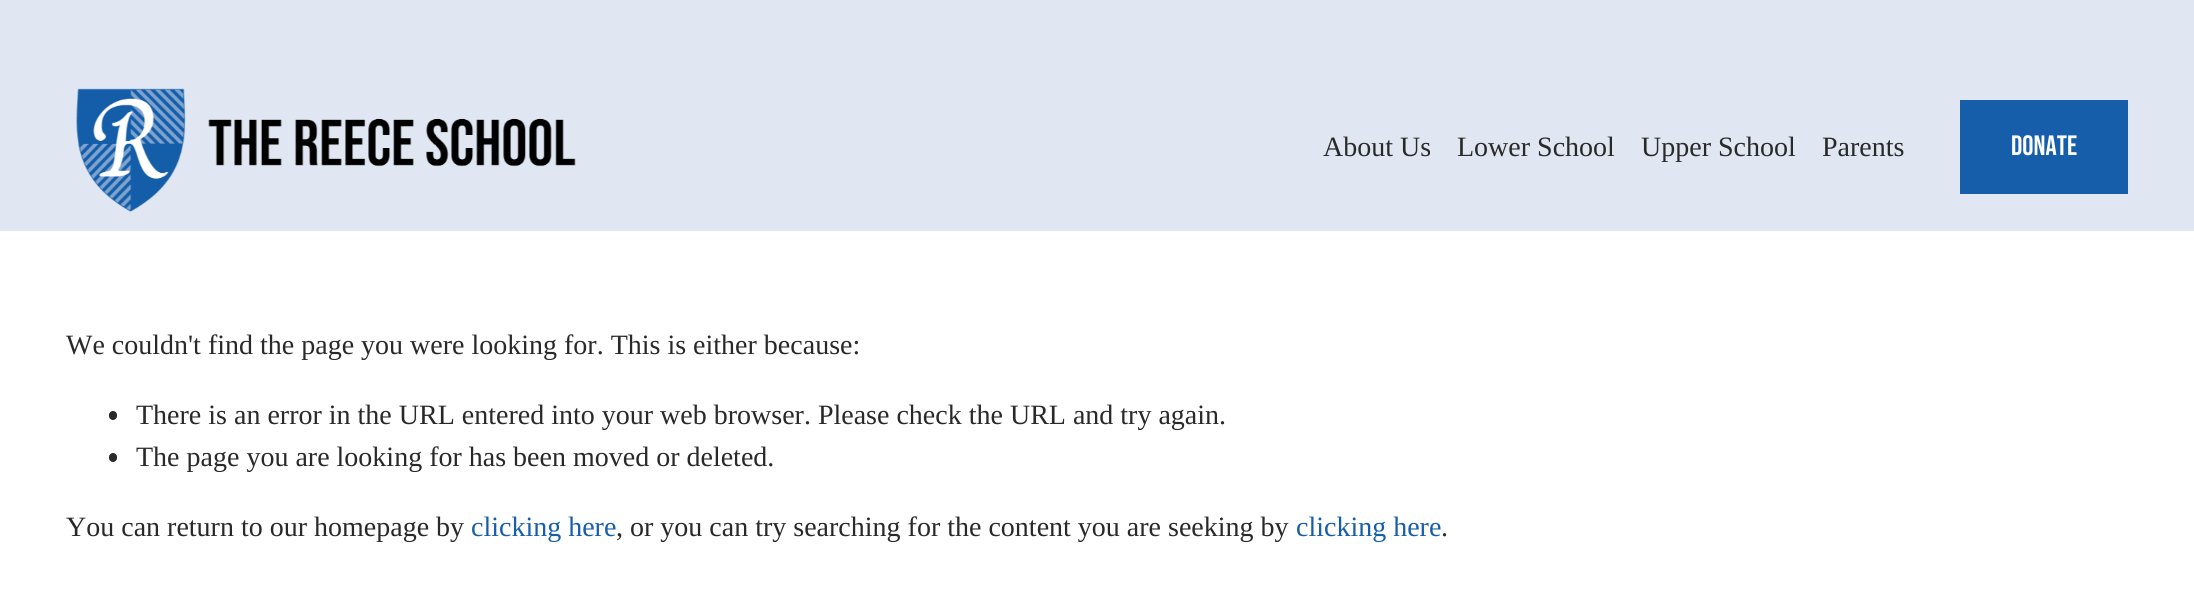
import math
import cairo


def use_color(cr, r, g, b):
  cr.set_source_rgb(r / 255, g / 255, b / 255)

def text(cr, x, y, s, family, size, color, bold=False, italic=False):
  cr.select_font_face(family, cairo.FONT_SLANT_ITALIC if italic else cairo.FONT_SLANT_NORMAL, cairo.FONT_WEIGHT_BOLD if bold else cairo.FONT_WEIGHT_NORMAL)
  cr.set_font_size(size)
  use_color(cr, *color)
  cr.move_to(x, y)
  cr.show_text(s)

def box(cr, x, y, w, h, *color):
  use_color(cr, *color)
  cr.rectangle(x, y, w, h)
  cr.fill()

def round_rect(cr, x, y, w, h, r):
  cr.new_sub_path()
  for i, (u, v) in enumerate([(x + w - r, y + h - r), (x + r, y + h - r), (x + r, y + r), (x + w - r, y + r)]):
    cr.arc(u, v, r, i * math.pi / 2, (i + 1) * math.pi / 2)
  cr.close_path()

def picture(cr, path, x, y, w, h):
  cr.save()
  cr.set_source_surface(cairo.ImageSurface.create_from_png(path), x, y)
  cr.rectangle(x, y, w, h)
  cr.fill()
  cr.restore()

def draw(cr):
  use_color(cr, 255, 255, 255)
  cr.paint()
  box(cr, 0, 0, 2194, 231, 224, 231, 242)
  picture(cr, "img_01.png", 76, 88, 500, 124)
  box(cr, 1960, 100, 168, 94, 22, 94, 169)
  use_color(cr, 41, 41, 41)
  round_rect(cr, 109, 411, 8, 9, 4)
  cr.fill()
  round_rect(cr, 109, 453, 8, 9, 4)
  cr.fill()
  text(cr, 1323, 156, "About Us", "Liberation Serif", 28, (41, 41, 41))
  text(cr, 1457, 156, "Lower School", "Liberation Serif", 28, (41, 41, 41))
  text(cr, 1641, 156, "Upper School", "Liberation Serif", 28, (41, 41, 41))
  text(cr, 1822, 156, "Parents", "Liberation Serif", 28, (41, 41, 41))
  text(cr, 2011, 155, "DONATE", "Bebas Neue", 28, (255, 255, 255))
  text(cr, 66, 354, "We couldn't find the page you were looking for. This is either because:", "Liberation Serif", 28, (41, 41, 41))
  text(cr, 136, 424, "There is an error in the URL entered into your web browser. Please check the URL and try again.", "Liberation Serif", 28, (41, 41, 41))
  text(cr, 136, 466, "The page you are looking for has been moved or deleted.", "Liberation Serif", 28, (41, 41, 41))
  text(cr, 66, 536, "You can return to our homepage by", "Liberation Serif", 28, (41, 41, 41))
  text(cr, 471, 536, "clicking here", "Liberation Serif", 28, (22, 94, 169))
  text(cr, 616, 536, ", or you can try searching for the content you are seeking by", "Liberation Serif", 28, (41, 41, 41))
  text(cr, 1296, 536, "clicking here", "Liberation Serif", 28, (22, 94, 169))
  text(cr, 1441, 536, ".", "Liberation Serif", 28, (41, 41, 41))


surface = cairo.ImageSurface(cairo.FORMAT_RGB24, 2194, 605)
cr = cairo.Context(surface)
options = cairo.FontOptions()
options.set_hint_metrics(cairo.HINT_METRICS_OFF)
options.set_hint_style(cairo.HINT_STYLE_NONE)
cr.set_font_options(options)
cr.set_miter_limit(4)
draw(cr)
surface.write_to_png("out.png")
